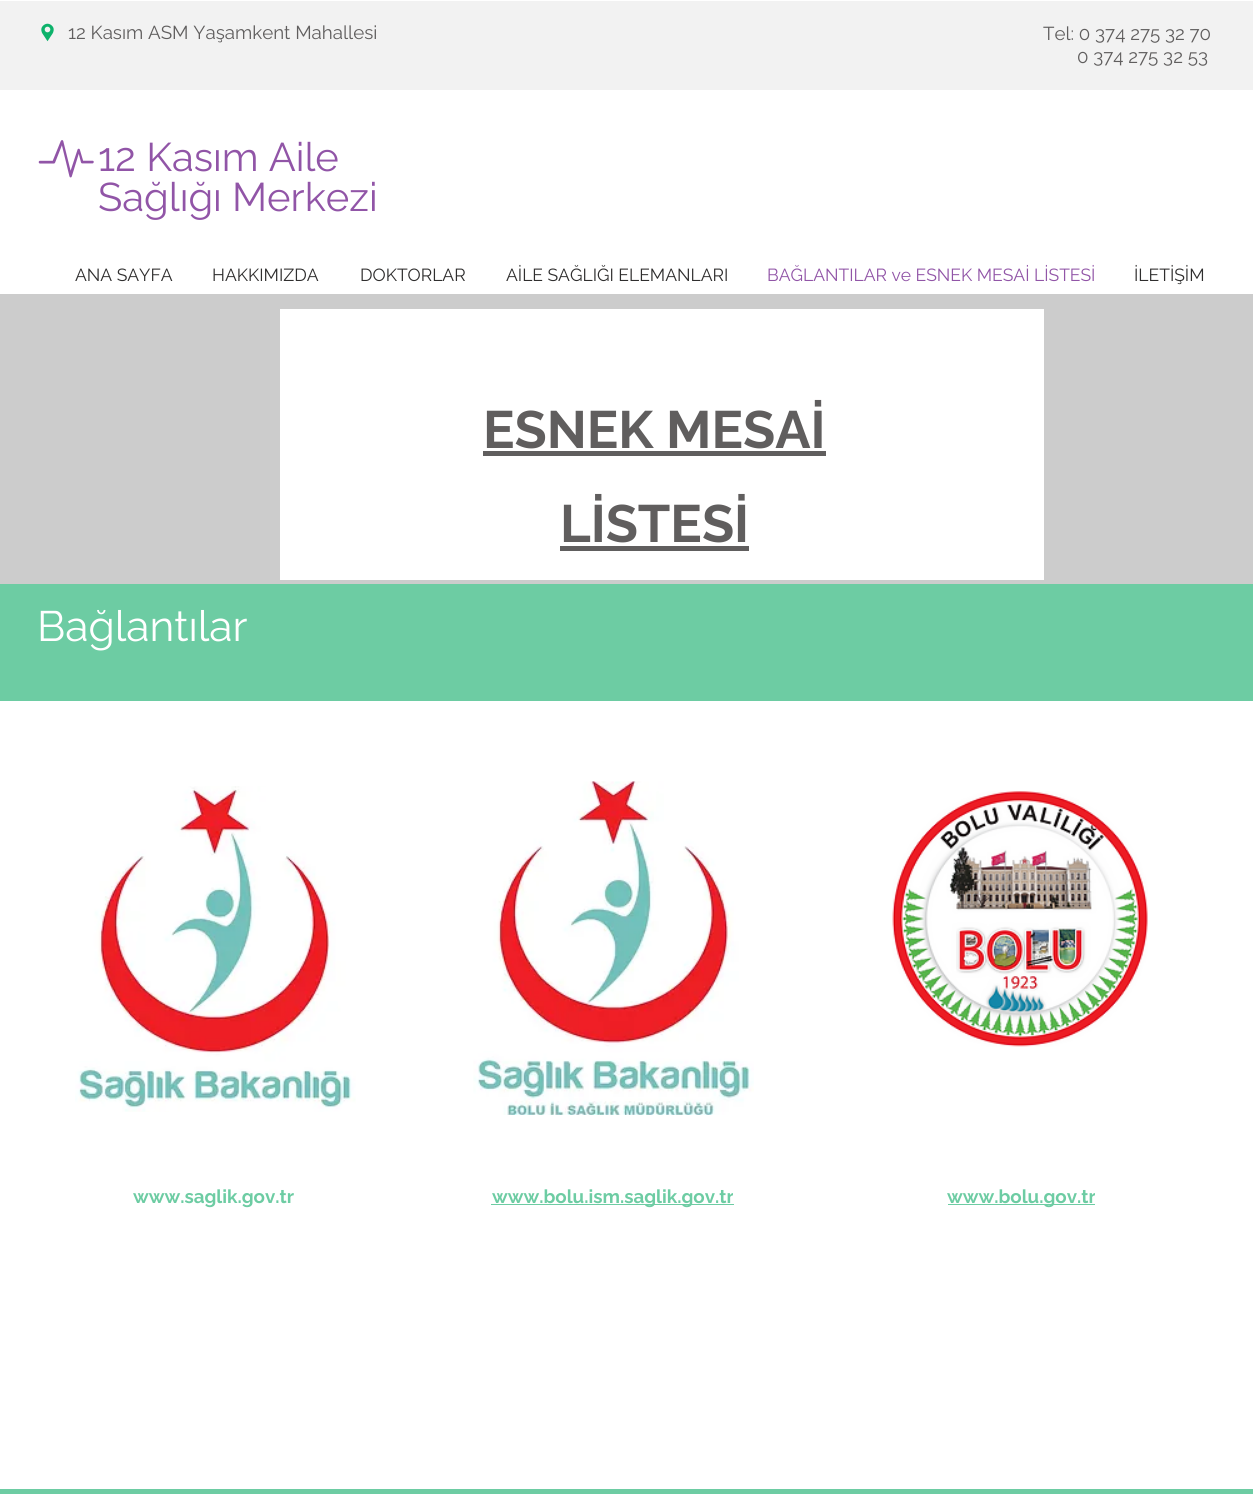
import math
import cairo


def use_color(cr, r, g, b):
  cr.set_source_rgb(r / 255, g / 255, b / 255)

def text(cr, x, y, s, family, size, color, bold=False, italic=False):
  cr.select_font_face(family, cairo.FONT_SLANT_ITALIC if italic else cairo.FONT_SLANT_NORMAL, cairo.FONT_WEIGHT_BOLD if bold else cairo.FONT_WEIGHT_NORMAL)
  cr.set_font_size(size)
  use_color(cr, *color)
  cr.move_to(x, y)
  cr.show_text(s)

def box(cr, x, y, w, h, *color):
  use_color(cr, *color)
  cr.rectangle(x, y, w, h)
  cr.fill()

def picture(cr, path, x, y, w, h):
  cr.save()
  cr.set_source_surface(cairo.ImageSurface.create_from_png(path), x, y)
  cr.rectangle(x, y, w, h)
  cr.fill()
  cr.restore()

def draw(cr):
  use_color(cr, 255, 255, 255)
  cr.paint()
  box(cr, 0, 1, 1253, 89, 242, 242, 242)
  picture(cr, "img_01.png", 41, 23, 13, 19)
  picture(cr, "img_02.png", 38, 140, 56, 38)
  box(cr, 0, 294, 1253, 290, 204, 204, 204)
  box(cr, 280, 309, 764, 271, 255, 255, 255)
  box(cr, 483, 451, 343, 5, 96, 94, 94)
  box(cr, 560, 546, 189, 5, 96, 94, 94)
  box(cr, 0, 584, 1253, 117, 109, 204, 163)
  picture(cr, "img_03.png", 75, 786, 281, 326)
  picture(cr, "img_04.png", 473, 781, 281, 334)
  picture(cr, "img_05.png", 892, 791, 256, 256)
  box(cr, 491, 1204, 243, 1, 109, 204, 163)
  box(cr, 948, 1204, 147, 1, 109, 204, 163)
  box(cr, 0, 1489, 1253, 5, 109, 204, 163)
  text(cr, 68, 39, "12 Kasım ASM Yaşamkent Mahallesi", "Raleway", 18.75, (96, 94, 94))
  text(cr, 1043, 40, "Tel: 0 374 275 32 70", "Raleway", 18.75, (96, 94, 94))
  text(cr, 1077, 63, "0 374 275 32 53", "Raleway", 18.75, (96, 94, 94))
  text(cr, 98, 171, "12 Kasım Aile", "Raleway", 40, (145, 85, 167))
  text(cr, 98, 211, "Sağlığı Merkezi", "Raleway", 40, (145, 85, 167))
  text(cr, 75, 281, "ANA SAYFA", "Raleway", 17.5, (47, 46, 46))
  text(cr, 212, 281, "HAKKIMIZDA", "Raleway", 17.5, (47, 46, 46))
  text(cr, 360, 281, "DOKTORLAR", "Raleway", 17.5, (47, 46, 46))
  text(cr, 506, 281, "AİLE SAĞLIĞI ELEMANLARI", "Raleway", 17.5, (47, 46, 46))
  text(cr, 767, 281, "BAĞLANTILAR ve ESNEK MESAİ LİSTESİ", "Raleway", 17.5, (145, 85, 167))
  text(cr, 1134, 281, "İLETİŞİM", "Raleway", 17.5, (47, 46, 46))
  text(cr, 483, 448, "ESNEK MESAİ", "Raleway", 52.5, (96, 94, 94), bold=True)
  text(cr, 560, 542, "LİSTESİ", "Raleway", 52.5, (96, 94, 94), bold=True)
  text(cr, 37, 641, "Bağlantılar", "Raleway", 42.5, (255, 255, 255))
  text(cr, 133, 1203, "www.saglik.gov.tr", "Raleway", 18.75, (109, 204, 163), bold=True)
  text(cr, 492, 1203, "www.bolu.ism.saglik.gov.tr", "Raleway", 18.75, (109, 204, 163), bold=True)
  text(cr, 947, 1203, "www.bolu.gov.tr", "Raleway", 18.75, (109, 204, 163), bold=True)


surface = cairo.ImageSurface(cairo.FORMAT_RGB24, 1253, 1494)
cr = cairo.Context(surface)
options = cairo.FontOptions()
options.set_hint_metrics(cairo.HINT_METRICS_OFF)
options.set_hint_style(cairo.HINT_STYLE_NONE)
cr.set_font_options(options)
cr.set_miter_limit(4)
draw(cr)
surface.write_to_png("out.png")
